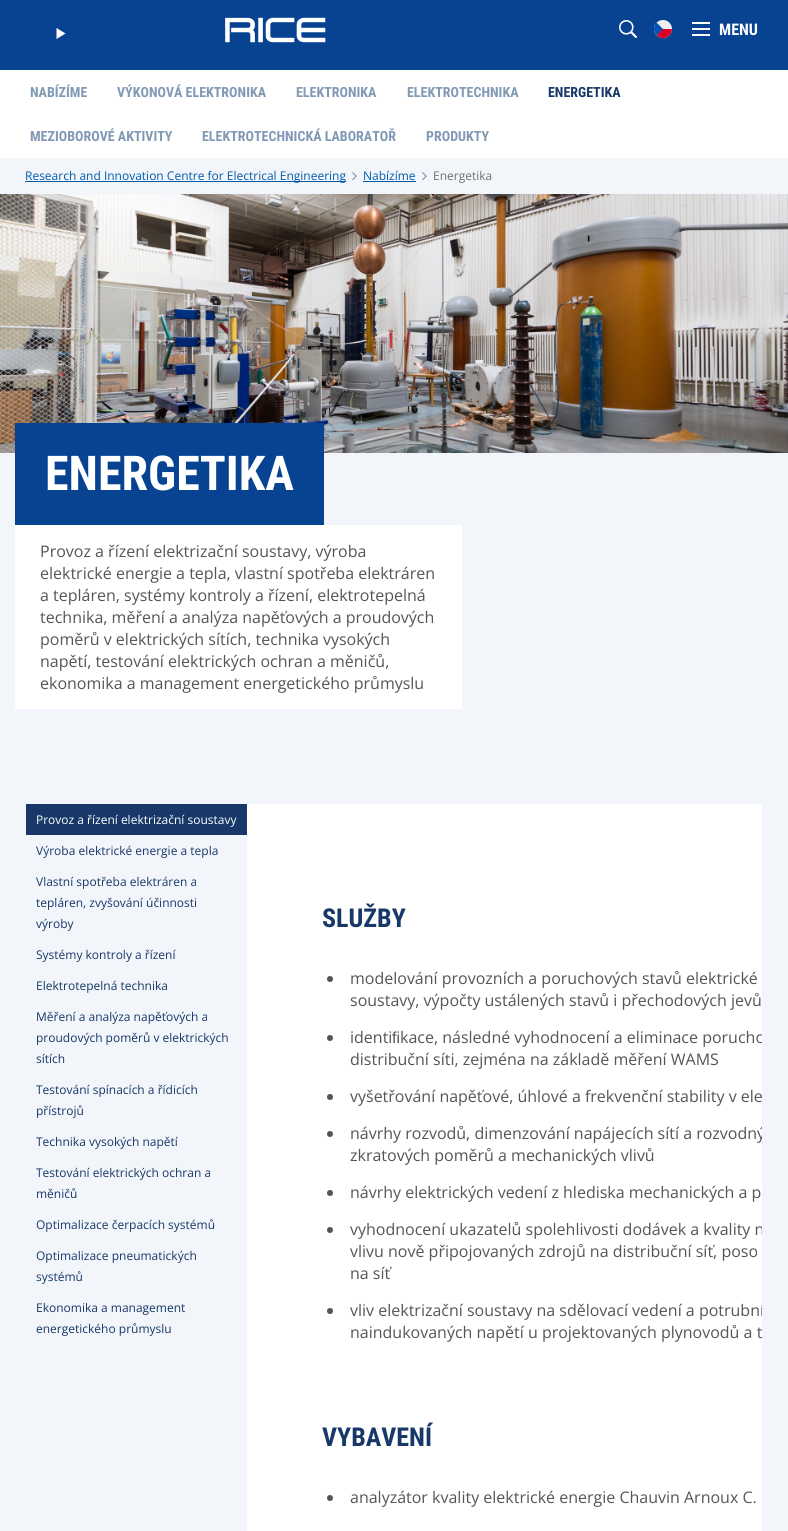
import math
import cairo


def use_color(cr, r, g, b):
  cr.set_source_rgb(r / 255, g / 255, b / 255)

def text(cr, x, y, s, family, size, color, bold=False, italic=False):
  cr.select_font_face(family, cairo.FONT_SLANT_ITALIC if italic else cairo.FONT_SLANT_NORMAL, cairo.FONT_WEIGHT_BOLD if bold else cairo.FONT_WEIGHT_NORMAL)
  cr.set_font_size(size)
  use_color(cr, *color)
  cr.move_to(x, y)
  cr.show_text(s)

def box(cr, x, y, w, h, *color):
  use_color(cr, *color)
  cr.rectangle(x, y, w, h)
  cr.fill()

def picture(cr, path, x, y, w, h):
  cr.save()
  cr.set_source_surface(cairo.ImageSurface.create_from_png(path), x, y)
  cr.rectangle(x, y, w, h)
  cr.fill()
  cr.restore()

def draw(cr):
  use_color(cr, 242, 245, 250)
  cr.paint()
  box(cr, 0, 0, 788, 70, 7, 67, 145)
  use_color(cr, 255, 255, 255)
  cr.new_path()
  cr.move_to(56.5, 28)
  cr.line_to(56.5, 39)
  cr.line_to(65.5, 33.5)
  cr.close_path()
  cr.fill()
  picture(cr, "img_01.png", 225, 17, 101, 26)
  picture(cr, "img_02.png", 619, 20, 18, 18)
  picture(cr, "img_03.png", 654, 20, 18, 18)
  box(cr, 692, 22, 18, 2, 255, 255, 255)
  box(cr, 692, 28, 18, 2, 255, 255, 255)
  box(cr, 692, 34, 18, 2, 255, 255, 255)
  box(cr, 0, 70, 788, 88, 255, 255, 255)
  picture(cr, "img_04.png", 352, 172, 5, 8)
  box(cr, 25, 181, 321, 1, 0, 92, 171)
  picture(cr, "img_04.png", 422, 172, 5, 8)
  box(cr, 363, 181, 53, 1, 0, 92, 171)
  picture(cr, "img_05.png", 0, 194, 788, 259)
  box(cr, 15, 423, 309, 102, 7, 67, 145)
  box(cr, 15, 525, 447, 184, 255, 255, 255)
  box(cr, 26, 804, 221, 31, 23, 56, 104)
  box(cr, 247, 804, 515, 727, 255, 255, 255)
  use_color(cr, 85, 85, 85)
  cr.arc(330, 979, 3, 0, 2 * math.pi)
  cr.fill()
  cr.arc(330, 1038, 3, 0, 2 * math.pi)
  cr.fill()
  cr.arc(330, 1097, 3, 0, 2 * math.pi)
  cr.fill()
  cr.arc(330, 1134, 3, 0, 2 * math.pi)
  cr.fill()
  cr.arc(330, 1193, 3, 0, 2 * math.pi)
  cr.fill()
  cr.arc(330, 1230, 3, 0, 2 * math.pi)
  cr.fill()
  cr.arc(330, 1311, 3, 0, 2 * math.pi)
  cr.fill()
  cr.arc(330, 1498, 3, 0, 2 * math.pi)
  cr.fill()
  text(cr, 719, 35, "MENU", "Roboto Condensed", 16, (255, 255, 255), bold=True)
  text(cr, 30, 97, "NABÍZÍME", "Roboto Condensed", 14, (128, 153, 180), bold=True)
  text(cr, 117, 97, "VÝKONOVÁ ELEKTRONIKA", "Roboto Condensed", 14, (128, 153, 180), bold=True)
  text(cr, 296, 97, "ELEKTRONIKA", "Roboto Condensed", 14, (128, 153, 180), bold=True)
  text(cr, 407, 97, "ELEKTROTECHNIKA", "Roboto Condensed", 14, (128, 153, 180), bold=True)
  text(cr, 548, 97, "ENERGETIKA", "Roboto Condensed", 14, (23, 56, 104), bold=True)
  text(cr, 30, 141, "MEZIOBOROVÉ AKTIVITY", "Roboto Condensed", 14, (128, 153, 180), bold=True)
  text(cr, 202, 141, "ELEKTROTECHNICKÁ LABORATOŘ", "Roboto Condensed", 14, (128, 153, 180), bold=True)
  text(cr, 426, 141, "PRODUKTY", "Roboto Condensed", 14, (128, 153, 180), bold=True)
  text(cr, 25, 180, "Research and Innovation Centre for Electrical Engineering", "Open Sans", 12, (0, 92, 171))
  text(cr, 363, 180, "Nabízíme", "Open Sans", 12, (0, 92, 171))
  text(cr, 433, 180, "Energetika", "Open Sans", 12, (112, 112, 112))
  text(cr, 45, 490, "ENERGETIKA", "Roboto Condensed", 48, (255, 255, 255), bold=True)
  text(cr, 40, 557, "Provoz a řízení elektrizační soustavy, výroba", "Open Sans", 16, (85, 85, 85))
  text(cr, 40, 579, "elektrické energie a tepla, vlastní spotřeba elektráren", "Open Sans", 16, (85, 85, 85))
  text(cr, 40, 601, "a tepláren, systémy kontroly a řízení, elektrotepelná", "Open Sans", 16, (85, 85, 85))
  text(cr, 40, 623, "technika, měření a analýza napěťových a proudových", "Open Sans", 16, (85, 85, 85))
  text(cr, 40, 645, "poměrů v elektrických sítích, technika vysokých", "Open Sans", 16, (85, 85, 85))
  text(cr, 40, 667, "napětí, testování elektrických ochran a měničů,", "Open Sans", 16, (85, 85, 85))
  text(cr, 40, 689, "ekonomika a management energetického průmyslu", "Open Sans", 16, (85, 85, 85))
  text(cr, 36, 824, "Provoz a řízení elektrizační soustavy", "Open Sans", 12, (255, 255, 255))
  text(cr, 36, 855, "Výroba elektrické energie a tepla", "Open Sans", 12, (23, 56, 104))
  text(cr, 36, 886, "Vlastní spotřeba elektráren a", "Open Sans", 12, (23, 56, 104))
  text(cr, 36, 907, "tepláren, zvyšování účinnosti", "Open Sans", 12, (23, 56, 104))
  text(cr, 36, 928, "výroby", "Open Sans", 12, (23, 56, 104))
  text(cr, 36, 959, "Systémy kontroly a řízení", "Open Sans", 12, (23, 56, 104))
  text(cr, 36, 990, "Elektrotepelná technika", "Open Sans", 12, (23, 56, 104))
  text(cr, 36, 1021, "Měření a analýza napěťových a", "Open Sans", 12, (23, 56, 104))
  text(cr, 36, 1042, "proudových poměrů v elektrických", "Open Sans", 12, (23, 56, 104))
  text(cr, 36, 1063, "sítích", "Open Sans", 12, (23, 56, 104))
  text(cr, 36, 1094, "Testování spínacích a řídicích", "Open Sans", 12, (23, 56, 104))
  text(cr, 36, 1115, "přístrojů", "Open Sans", 12, (23, 56, 104))
  text(cr, 36, 1146, "Technika vysokých napětí", "Open Sans", 12, (23, 56, 104))
  text(cr, 36, 1177, "Testování elektrických ochran a", "Open Sans", 12, (23, 56, 104))
  text(cr, 36, 1198, "měničů", "Open Sans", 12, (23, 56, 104))
  text(cr, 36, 1229, "Optimalizace čerpacích systémů", "Open Sans", 12, (23, 56, 104))
  text(cr, 36, 1260, "Optimalizace pneumatických", "Open Sans", 12, (23, 56, 104))
  text(cr, 36, 1281, "systémů", "Open Sans", 12, (23, 56, 104))
  text(cr, 36, 1312, "Ekonomika a management", "Open Sans", 12, (23, 56, 104))
  text(cr, 36, 1333, "energetického průmyslu", "Open Sans", 12, (23, 56, 104))
  text(cr, 322, 927, "SLUŽBY", "Roboto Condensed", 26, (23, 56, 104), bold=True)
  text(cr, 350, 984, "modelování provozních a poruchových stavů elektrické", "Open Sans", 16, (85, 85, 85))
  text(cr, 350, 1006, "soustavy, výpočty ustálených stavů i přechodových jevů", "Open Sans", 16, (85, 85, 85))
  text(cr, 350, 1043, "identi", "Open Sans", 16, (85, 85, 85))
  text(cr, 392, 1043, "ﬁ", "Liberation Sans", 16, (85, 85, 85))
  cr.save()
  cr.rectangle(292, 849, 470, 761)
  cr.clip()
  text(cr, 400, 1043, "kace, následné vyhodnocení a eliminace porucho", "Open Sans", 16, (85, 85, 85))
  cr.restore()
  text(cr, 350, 1065, "distribuční síti, zejména na základě měření WAMS", "Open Sans", 16, (85, 85, 85))
  text(cr, 350, 1102, "vyšetřování napěťové, úhlové a frekvenční stability v ele", "Open Sans", 16, (85, 85, 85))
  cr.save()
  cr.rectangle(292, 849, 470, 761)
  cr.clip()
  text(cr, 350, 1139, "návrhy rozvodů, dimenzování napájecích sítí a rozvodný", "Open Sans", 16, (85, 85, 85))
  cr.restore()
  text(cr, 350, 1161, "zkratových poměrů a mechanických vlivů", "Open Sans", 16, (85, 85, 85))
  text(cr, 350, 1198, "návrhy elektrických vedení z hlediska mechanických a p", "Open Sans", 16, (85, 85, 85))
  cr.save()
  cr.rectangle(292, 849, 470, 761)
  cr.clip()
  text(cr, 350, 1235, "vyhodnocení ukazatelů spolehlivosti dodávek a kvality n", "Open Sans", 16, (85, 85, 85))
  cr.restore()
  text(cr, 350, 1257, "vlivu nově připojovaných zdrojů na distribuční síť, poso", "Open Sans", 16, (85, 85, 85))
  text(cr, 350, 1279, "na síť", "Open Sans", 16, (85, 85, 85))
  cr.save()
  cr.rectangle(292, 849, 470, 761)
  cr.clip()
  text(cr, 350, 1316, "vliv elektrizační soustavy na sdělovací vedení a potrubní", "Open Sans", 16, (85, 85, 85))
  cr.restore()
  text(cr, 350, 1338, "naindukovaných napětí u projektovaných plynovodů a t", "Open Sans", 16, (85, 85, 85))
  text(cr, 322, 1446, "VYBAVENÍ", "Roboto Condensed", 26, (23, 56, 104), bold=True)
  text(cr, 350, 1503, "analyzátor kvality elektrické energie Chauvin Arnoux C.", "Open Sans", 16, (85, 85, 85))


surface = cairo.ImageSurface(cairo.FORMAT_RGB24, 788, 1531)
cr = cairo.Context(surface)
options = cairo.FontOptions()
options.set_hint_metrics(cairo.HINT_METRICS_OFF)
options.set_hint_style(cairo.HINT_STYLE_NONE)
cr.set_font_options(options)
cr.set_miter_limit(4)
draw(cr)
surface.write_to_png("out.png")
